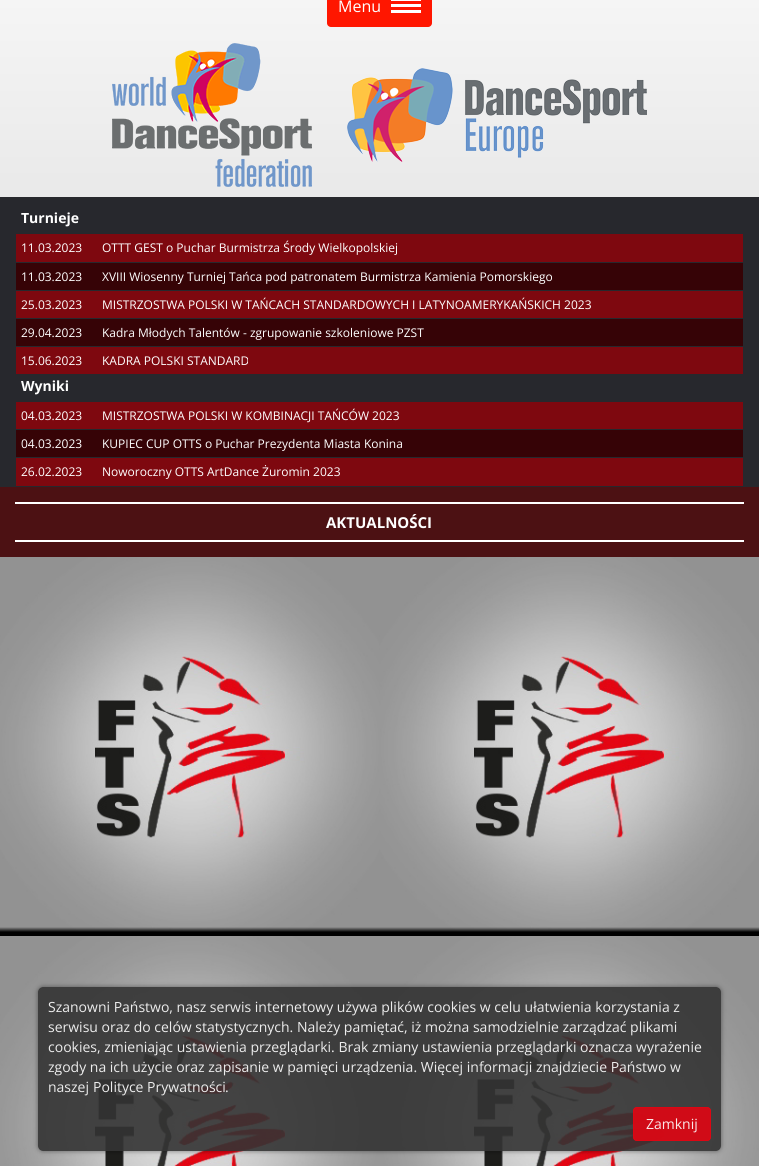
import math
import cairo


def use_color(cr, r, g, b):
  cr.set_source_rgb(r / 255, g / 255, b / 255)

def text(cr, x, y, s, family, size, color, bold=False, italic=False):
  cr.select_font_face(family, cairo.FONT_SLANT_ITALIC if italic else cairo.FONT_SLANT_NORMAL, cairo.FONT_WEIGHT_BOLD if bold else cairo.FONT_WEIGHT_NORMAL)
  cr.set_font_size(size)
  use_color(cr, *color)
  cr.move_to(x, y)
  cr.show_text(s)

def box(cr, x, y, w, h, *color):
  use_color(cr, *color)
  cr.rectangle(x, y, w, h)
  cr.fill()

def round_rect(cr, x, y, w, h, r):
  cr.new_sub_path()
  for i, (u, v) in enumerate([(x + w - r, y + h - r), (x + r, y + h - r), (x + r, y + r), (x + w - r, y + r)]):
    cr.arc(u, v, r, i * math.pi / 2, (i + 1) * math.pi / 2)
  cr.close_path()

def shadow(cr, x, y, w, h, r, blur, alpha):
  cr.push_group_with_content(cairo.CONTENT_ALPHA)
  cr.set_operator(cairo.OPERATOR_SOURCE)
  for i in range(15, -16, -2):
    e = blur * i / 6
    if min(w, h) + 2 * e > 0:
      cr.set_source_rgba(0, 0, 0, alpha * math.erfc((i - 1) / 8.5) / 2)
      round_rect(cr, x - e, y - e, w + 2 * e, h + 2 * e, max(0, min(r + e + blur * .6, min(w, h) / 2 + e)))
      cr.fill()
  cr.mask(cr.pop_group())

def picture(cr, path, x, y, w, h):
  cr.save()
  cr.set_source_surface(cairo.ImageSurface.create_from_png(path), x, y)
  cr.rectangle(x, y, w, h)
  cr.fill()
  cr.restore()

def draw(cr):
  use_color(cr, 39, 40, 45)
  cr.paint()
  gradient = cairo.LinearGradient(380, -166, 380, 197)
  gradient.add_color_stop_rgba(0, 1, 1, 1, 1)
  gradient.add_color_stop_rgba(1, 0.914, 0.914, 0.914, 1)
  cr.set_source(gradient)
  cr.rectangle(0, 0, 759, 197)
  cr.fill()
  use_color(cr, 255, 22, 0)
  round_rect(cr, 327, -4, 105, 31, 4)
  cr.fill()
  box(cr, 391, 0, 30, 1, 255, 255, 255)
  box(cr, 391, 4, 30, 3, 255, 255, 255)
  box(cr, 391, 10, 30, 3, 255, 255, 255)
  picture(cr, "img_01.png", 112, 43, 200, 144)
  picture(cr, "img_02.png", 347, 68, 300, 94)
  box(cr, 16, 234, 727, 28, 126, 8, 15)
  box(cr, 16, 263, 727, 27, 54, 3, 6)
  box(cr, 16, 291, 727, 27, 126, 8, 15)
  box(cr, 16, 319, 727, 27, 54, 3, 6)
  box(cr, 16, 347, 727, 27, 126, 8, 15)
  box(cr, 16, 402, 727, 27, 126, 8, 15)
  box(cr, 16, 430, 727, 27, 54, 3, 6)
  box(cr, 16, 458, 727, 28, 126, 8, 15)
  box(cr, 0, 487, 759, 70, 76, 17, 19)
  box(cr, 15, 502, 729, 2, 255, 255, 255)
  box(cr, 15, 540, 729, 2, 255, 255, 255)
  picture(cr, "img_03.png", 0, 557, 379, 379)
  picture(cr, "img_04.png", 379, 557, 380, 379)
  picture(cr, "img_05.png", 0, 936, 380, 230)
  picture(cr, "img_06.png", 380, 936, 379, 230)
  cr.save()
  cr.set_fill_rule(cairo.FILL_RULE_EVEN_ODD)
  cr.new_path()
  cr.move_to(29, 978)
  cr.line_to(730, 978)
  cr.line_to(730, 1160)
  cr.line_to(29, 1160)
  cr.close_path()
  cr.move_to(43, 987)
  cr.line_to(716, 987)
  cr.curve_to(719, 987, 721, 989, 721, 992)
  cr.line_to(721, 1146)
  cr.curve_to(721, 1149, 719, 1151, 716, 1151)
  cr.line_to(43, 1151)
  cr.curve_to(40, 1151, 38, 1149, 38, 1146)
  cr.line_to(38, 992)
  cr.curve_to(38, 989, 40, 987, 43, 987)
  cr.close_path()
  cr.clip()
  use_color(cr, 0, 0, 0)
  shadow(cr, 38, 987, 683, 164, 5, 2.5, 0.45)
  cr.restore()
  cr.set_source_rgba(0.2, 0.2, 0.2, 0.9)
  round_rect(cr, 38, 987, 683, 164, 5)
  cr.fill()
  cr.set_source_rgba(0.878, 0.024, 0.075, 0.9)
  round_rect(cr, 633, 1107, 78, 34, 4)
  cr.fill()
  round_rect(cr, 633.5, 1107.5, 77, 33, 3.5)
  cr.set_line_width(1)
  cr.stroke()
  text(cr, 338, 12, "Menu", "Open Sans", 16, (255, 255, 255))
  text(cr, 21, 223, "Turnieje", "Open Sans", 14, (255, 255, 255), bold=True)
  text(cr, 21, 252, "11.03.2023", "Open Sans", 12, (255, 255, 255))
  text(cr, 102, 252, "OTTT GEST o Puchar Burmistrza Środy Wielkopolskiej", "Open Sans", 12, (255, 255, 255))
  text(cr, 21, 281, "11.03.2023", "Open Sans", 12, (255, 255, 255))
  text(cr, 102, 281, "XVIII Wiosenny Turniej Tańca pod patronatem Burmistrza Kamienia Pomorskiego", "Open Sans", 12, (255, 255, 255))
  text(cr, 21, 309, "25.03.2023", "Open Sans", 12, (255, 255, 255))
  text(cr, 102, 309, "MISTRZOSTWA POLSKI W TAŃCACH STANDARDOWYCH I LATYNOAMERYKAŃSKICH 2023", "Open Sans", 12, (255, 255, 255))
  text(cr, 21, 337, "29.04.2023", "Open Sans", 12, (255, 255, 255))
  text(cr, 102, 337, "Kadra Młodych Talentów - zgrupowanie szkoleniowe PZST", "Open Sans", 12, (255, 255, 255))
  text(cr, 21, 365, "15.06.2023", "Open Sans", 12, (255, 255, 255))
  text(cr, 102, 365, "KADRA POLSKI STANDARD", "Open Sans", 12, (255, 255, 255))
  text(cr, 21, 391, "Wyniki", "Open Sans", 14, (255, 255, 255), bold=True)
  text(cr, 21, 420, "04.03.2023", "Open Sans", 12, (255, 255, 255))
  text(cr, 102, 420, "MISTRZOSTWA POLSKI W KOMBINACJI TAŃCÓW 2023", "Open Sans", 12, (255, 255, 255))
  text(cr, 21, 448, "04.03.2023", "Open Sans", 12, (255, 255, 255))
  text(cr, 102, 448, "KUPIEC CUP OTTS o Puchar Prezydenta Miasta Konina", "Open Sans", 12, (255, 255, 255))
  text(cr, 21, 476, "26.02.2023", "Open Sans", 12, (255, 255, 255))
  text(cr, 102, 476, "Noworoczny OTTS ArtDance Żuromin 2023", "Open Sans", 12, (255, 255, 255))
  text(cr, 326, 528, "AKTUALNOŚCI", "Open Sans", 15, (255, 255, 255), bold=True)
  text(cr, 48, 1012, "Szanowni Państwo, nasz serwis internetowy używa plików cookies w celu ułatwienia korzystania z", "Open Sans", 14, (236, 236, 236))
  text(cr, 48, 1032, "serwisu oraz do celów statystycznych. Należy pamiętać, iż można samodzielnie zarządzać plikami", "Open Sans", 14, (236, 236, 236))
  text(cr, 48, 1052, "cookies, zmieniając ustawienia przeglądarki. Brak zmiany ustawienia przeglądarki oznacza wyrażenie", "Open Sans", 14, (236, 236, 236))
  text(cr, 48, 1072, "zgody na ich użycie oraz zapisanie w pamięci urządzenia. Więcej informacji znajdziecie Państwo w", "Open Sans", 14, (236, 236, 236))
  text(cr, 48, 1092, "naszej", "Open Sans", 14, (236, 236, 236))
  text(cr, 93, 1092, "Polityce Prywatności", "Open Sans", 14, (236, 236, 236))
  text(cr, 225, 1092, ".", "Open Sans", 14, (236, 236, 236))
  text(cr, 646, 1129, "Zamknij", "Open Sans", 14, (250, 231, 232))


surface = cairo.ImageSurface(cairo.FORMAT_RGB24, 759, 1166)
cr = cairo.Context(surface)
options = cairo.FontOptions()
options.set_hint_metrics(cairo.HINT_METRICS_OFF)
options.set_hint_style(cairo.HINT_STYLE_NONE)
cr.set_font_options(options)
cr.set_miter_limit(4)
draw(cr)
surface.write_to_png("out.png")
